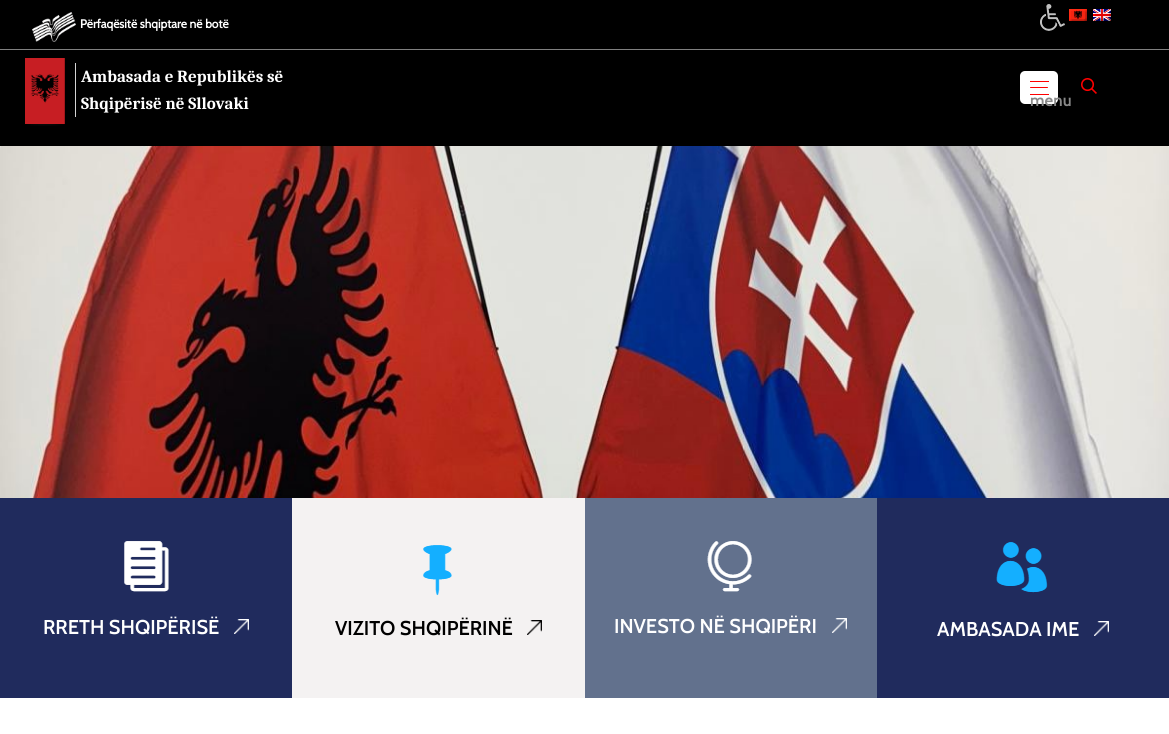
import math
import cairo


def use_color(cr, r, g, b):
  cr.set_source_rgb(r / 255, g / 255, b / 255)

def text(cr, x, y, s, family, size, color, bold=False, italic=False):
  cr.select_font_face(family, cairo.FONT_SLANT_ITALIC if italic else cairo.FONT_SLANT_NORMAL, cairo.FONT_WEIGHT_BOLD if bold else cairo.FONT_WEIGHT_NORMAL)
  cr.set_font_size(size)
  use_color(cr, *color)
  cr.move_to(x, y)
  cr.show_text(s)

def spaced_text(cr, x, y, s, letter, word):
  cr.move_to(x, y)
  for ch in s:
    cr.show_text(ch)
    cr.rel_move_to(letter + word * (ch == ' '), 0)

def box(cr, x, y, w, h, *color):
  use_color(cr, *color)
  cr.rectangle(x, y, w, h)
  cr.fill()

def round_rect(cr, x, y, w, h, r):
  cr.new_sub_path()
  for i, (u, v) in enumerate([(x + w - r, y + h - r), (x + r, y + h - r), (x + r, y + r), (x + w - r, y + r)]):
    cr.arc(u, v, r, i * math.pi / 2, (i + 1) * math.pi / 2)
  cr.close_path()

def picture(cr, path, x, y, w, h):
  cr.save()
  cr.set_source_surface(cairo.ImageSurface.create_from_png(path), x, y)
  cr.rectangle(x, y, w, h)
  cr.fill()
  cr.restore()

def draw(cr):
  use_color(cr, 255, 255, 255)
  cr.paint()
  box(cr, 0, 0, 1169, 49, 0, 0, 0)
  box(cr, 0, 49, 1169, 1, 128, 128, 128)
  picture(cr, "img_01.png", 32, 12, 44, 30)
  picture(cr, "img_02.png", 1040, 4, 25, 27)
  picture(cr, "img_03.png", 1069, 9, 18, 12)
  picture(cr, "img_04.png", 1093, 9, 18, 12)
  box(cr, 0, 50, 1169, 96, 0, 0, 0)
  picture(cr, "img_05.png", 25, 58, 40, 68)
  box(cr, 75, 63, 1, 54, 211, 211, 211)
  picture(cr, "img_06.png", 1081, 78, 16, 16)
  use_color(cr, 255, 255, 255)
  round_rect(cr, 1020, 71, 38, 33, 5)
  cr.fill()
  box(cr, 1030, 81, 19, 1, 255, 0, 0)
  box(cr, 1030, 94, 19, 1, 255, 0, 0)
  round_rect(cr, 1030, 87, 18, 1, 0.5)
  cr.fill()
  picture(cr, "img_07.png", 0, 146, 1169, 352)
  box(cr, 0, 498, 292, 200, 32, 43, 93)
  picture(cr, "img_08.png", 124, 541, 45, 51)
  picture(cr, "img_09.png", 234, 619, 15, 15)
  box(cr, 292, 498, 293, 200, 244, 242, 242)
  picture(cr, "img_10.png", 423, 545, 29, 51)
  picture(cr, "img_11.png", 527, 620, 15, 15)
  box(cr, 585, 498, 292, 200, 98, 113, 141)
  picture(cr, "img_12.png", 707, 541, 45, 51)
  picture(cr, "img_13.png", 832, 618, 15, 15)
  box(cr, 877, 498, 292, 200, 32, 43, 93)
  picture(cr, "img_14.png", 996, 542, 52, 51)
  picture(cr, "img_09.png", 1094, 621, 15, 15)
  text(cr, 80, 28, "Përfaqësitë shqiptare në botë", "Cabin", 12, (255, 255, 255), bold=True)
  text(cr, 81, 82, "Ambasada e Republikës së", "Caladea", 17, (255, 255, 255), bold=True)
  text(cr, 81, 109, "Shqipërisë në Sllovaki", "Caladea", 17, (255, 255, 255), bold=True)
  cr.select_font_face("Cabin", cairo.FONT_SLANT_NORMAL, cairo.FONT_WEIGHT_BOLD)
  cr.set_font_size(16)
  use_color(cr, 137, 137, 137)
  spaced_text(cr, 1030, 106, "menu", 0.5, 0)
  text(cr, 43, 634, "RRETH SHQIPËRISË", "Cabin SemiBold", 20, (255, 255, 255))
  text(cr, 335, 635, "VIZITO SHQIPËRINË", "Cabin SemiBold", 20, (0, 0, 0))
  text(cr, 614, 633, "INVESTO NË SHQIPËRI", "Cabin SemiBold", 20, (255, 255, 255))
  text(cr, 937, 636, "AMBASADA IME", "Cabin SemiBold", 20, (255, 255, 255))


surface = cairo.ImageSurface(cairo.FORMAT_RGB24, 1169, 734)
cr = cairo.Context(surface)
options = cairo.FontOptions()
options.set_hint_metrics(cairo.HINT_METRICS_OFF)
options.set_hint_style(cairo.HINT_STYLE_NONE)
cr.set_font_options(options)
cr.set_miter_limit(4)
draw(cr)
surface.write_to_png("out.png")
